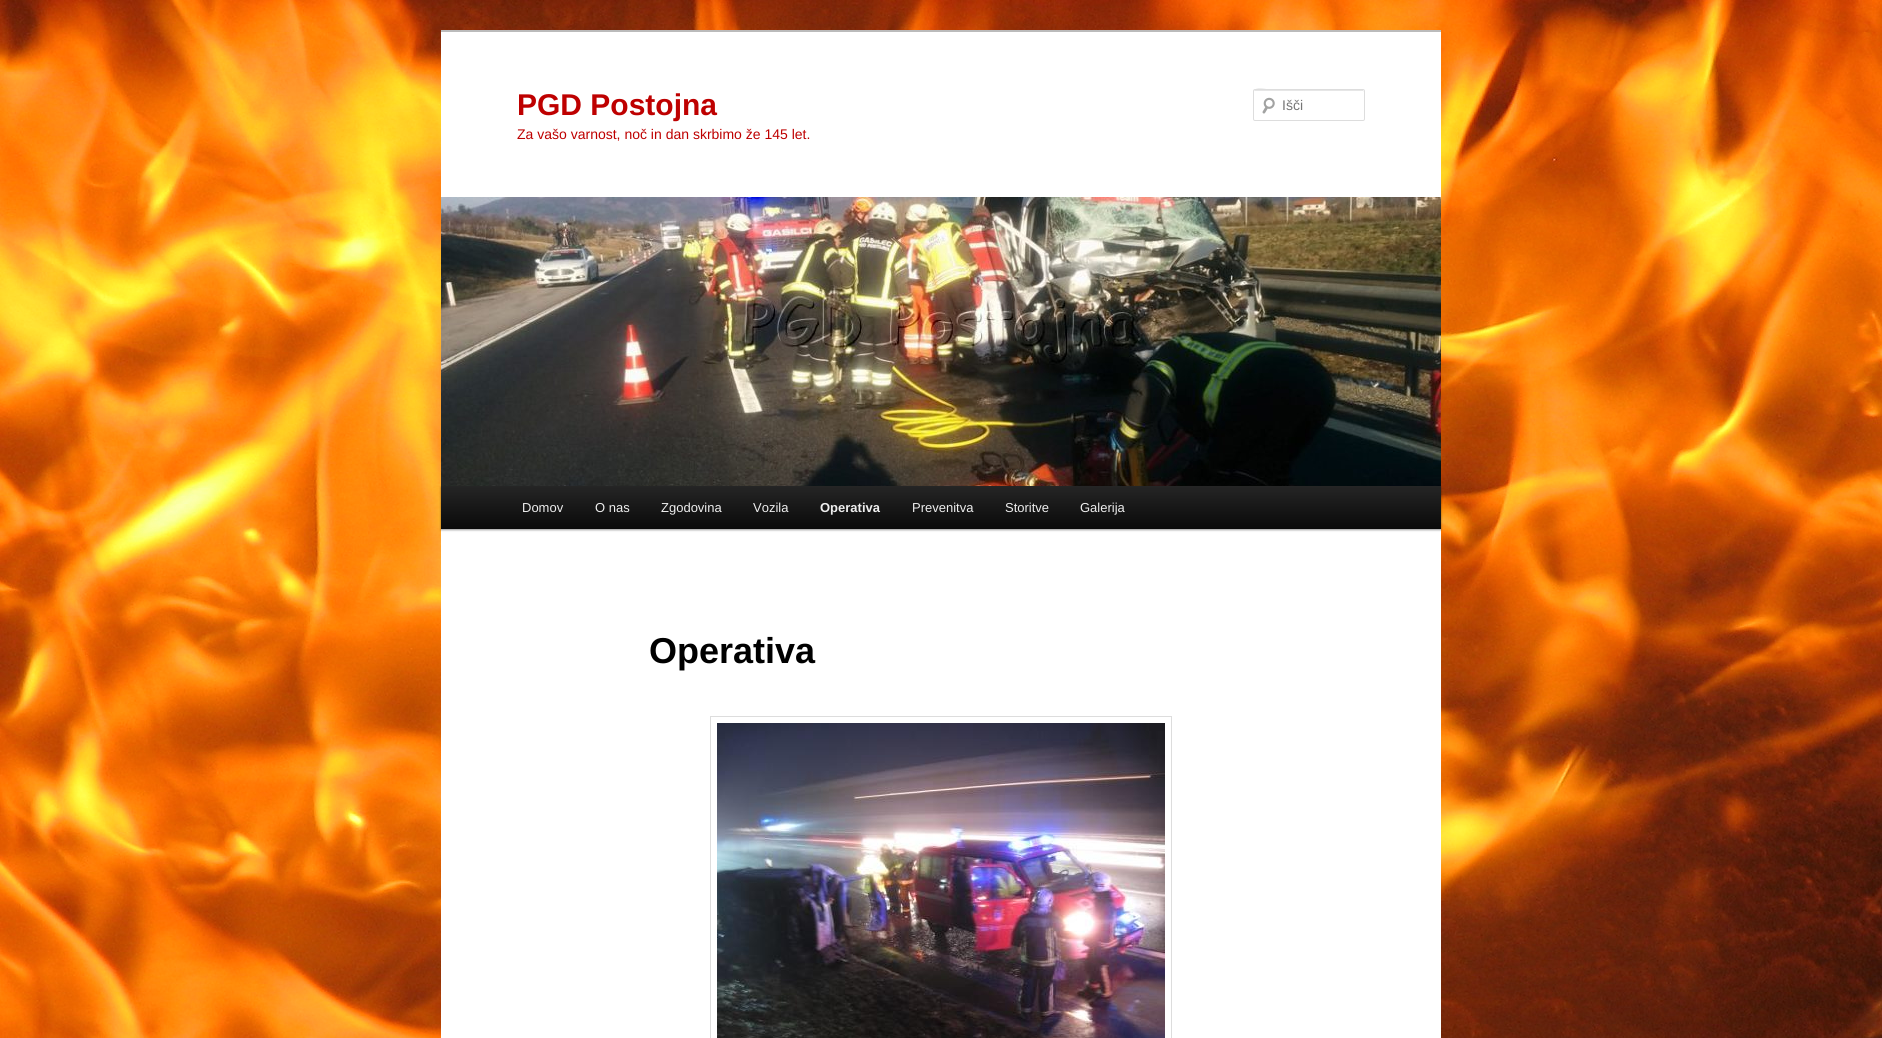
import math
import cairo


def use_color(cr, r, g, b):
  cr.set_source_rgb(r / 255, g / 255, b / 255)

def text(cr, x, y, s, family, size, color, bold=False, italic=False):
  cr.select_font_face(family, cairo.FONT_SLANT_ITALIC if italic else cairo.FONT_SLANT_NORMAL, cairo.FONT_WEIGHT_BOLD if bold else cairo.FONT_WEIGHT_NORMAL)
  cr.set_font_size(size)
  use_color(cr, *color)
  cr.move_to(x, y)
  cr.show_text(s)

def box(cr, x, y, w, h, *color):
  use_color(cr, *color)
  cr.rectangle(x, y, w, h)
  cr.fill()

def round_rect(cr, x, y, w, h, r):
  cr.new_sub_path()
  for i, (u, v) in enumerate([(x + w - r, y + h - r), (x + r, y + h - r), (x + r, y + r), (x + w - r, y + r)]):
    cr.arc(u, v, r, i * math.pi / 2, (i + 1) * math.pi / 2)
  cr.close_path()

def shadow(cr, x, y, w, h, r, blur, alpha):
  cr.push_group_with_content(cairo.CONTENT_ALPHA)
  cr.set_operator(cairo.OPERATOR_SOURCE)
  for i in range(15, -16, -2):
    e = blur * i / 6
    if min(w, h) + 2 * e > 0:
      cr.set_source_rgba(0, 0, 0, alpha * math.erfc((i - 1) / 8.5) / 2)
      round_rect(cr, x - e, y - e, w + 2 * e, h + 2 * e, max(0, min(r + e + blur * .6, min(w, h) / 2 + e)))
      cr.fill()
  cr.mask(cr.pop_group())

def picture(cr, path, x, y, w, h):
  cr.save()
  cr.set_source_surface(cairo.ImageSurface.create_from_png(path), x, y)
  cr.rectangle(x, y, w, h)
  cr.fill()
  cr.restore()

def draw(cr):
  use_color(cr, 255, 255, 255)
  cr.paint()
  picture(cr, "img_01.png", 0, 0, 1882, 1038)
  box(cr, 441, 32, 1000, 1006, 255, 255, 255)
  box(cr, 441, 30, 1000, 2, 187, 187, 187)
  picture(cr, "img_02.png", 1262, 97, 13, 17)
  use_color(cr, 230, 230, 230)
  cr.new_path()
  cr.move_to(1255, 91)
  cr.line_to(1364, 91)
  cr.line_to(1364, 92)
  cr.line_to(1363, 90)
  cr.line_to(1273, 90)
  cr.curve_to(1269, 90, 1254, 85, 1254, 92)
  cr.curve_to(1254, 91, 1254, 91, 1255, 91)
  cr.close_path()
  cr.fill()
  round_rect(cr, 1253.5, 89.5, 111, 31, 1.5)
  use_color(cr, 221, 221, 221)
  cr.set_line_width(1)
  cr.stroke()
  use_color(cr, 0, 0, 0)
  shadow(cr, 441, 487, 1000, 43, 0, 1, 0.4)
  picture(cr, "img_03.png", 441, 197, 1000, 289)
  gradient = cairo.LinearGradient(941, 486, 941, 529)
  gradient.add_color_stop_rgba(0, 0.145, 0.145, 0.145, 1)
  gradient.add_color_stop_rgba(1, 0.039, 0.039, 0.039, 1)
  cr.set_source(gradient)
  cr.rectangle(441, 486, 1000, 43)
  cr.fill()
  cr.rectangle(710.5, 716.5, 461, 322)
  use_color(cr, 221, 221, 221)
  cr.stroke()
  picture(cr, "img_04.png", 717, 723, 448, 315)
  text(cr, 517, 115, "PGD Postojna", "Liberation Sans", 30, (190, 0, 0), bold=True)
  text(cr, 517, 139, "Za vašo varnost, noč in dan skrbimo že 145 let.", "Liberation Sans", 14, (190, 0, 0))
  text(cr, 1282, 110, "Išči", "Liberation Sans", 14, (117, 117, 117))
  text(cr, 522, 512, "Domov", "Liberation Sans", 13, (238, 238, 238))
  text(cr, 595, 512, "O nas", "Liberation Sans", 13, (238, 238, 238))
  text(cr, 661, 512, "Zgodovina", "Liberation Sans", 13, (238, 238, 238))
  text(cr, 753, 512, "Vozila", "Liberation Sans", 13, (238, 238, 238))
  text(cr, 820, 512, "Operativa", "Liberation Sans", 13, (238, 238, 238), bold=True)
  text(cr, 912, 512, "Prevenitva", "Liberation Sans", 13, (238, 238, 238))
  text(cr, 1005, 512, "Storitve", "Liberation Sans", 13, (238, 238, 238))
  text(cr, 1080, 512, "Galerija", "Liberation Sans", 13, (238, 238, 238))
  text(cr, 649, 663, "Operativa", "Liberation Sans", 36, (0, 0, 0), bold=True)


surface = cairo.ImageSurface(cairo.FORMAT_RGB24, 1882, 1038)
cr = cairo.Context(surface)
options = cairo.FontOptions()
options.set_hint_metrics(cairo.HINT_METRICS_OFF)
options.set_hint_style(cairo.HINT_STYLE_NONE)
cr.set_font_options(options)
cr.set_miter_limit(4)
draw(cr)
surface.write_to_png("out.png")
